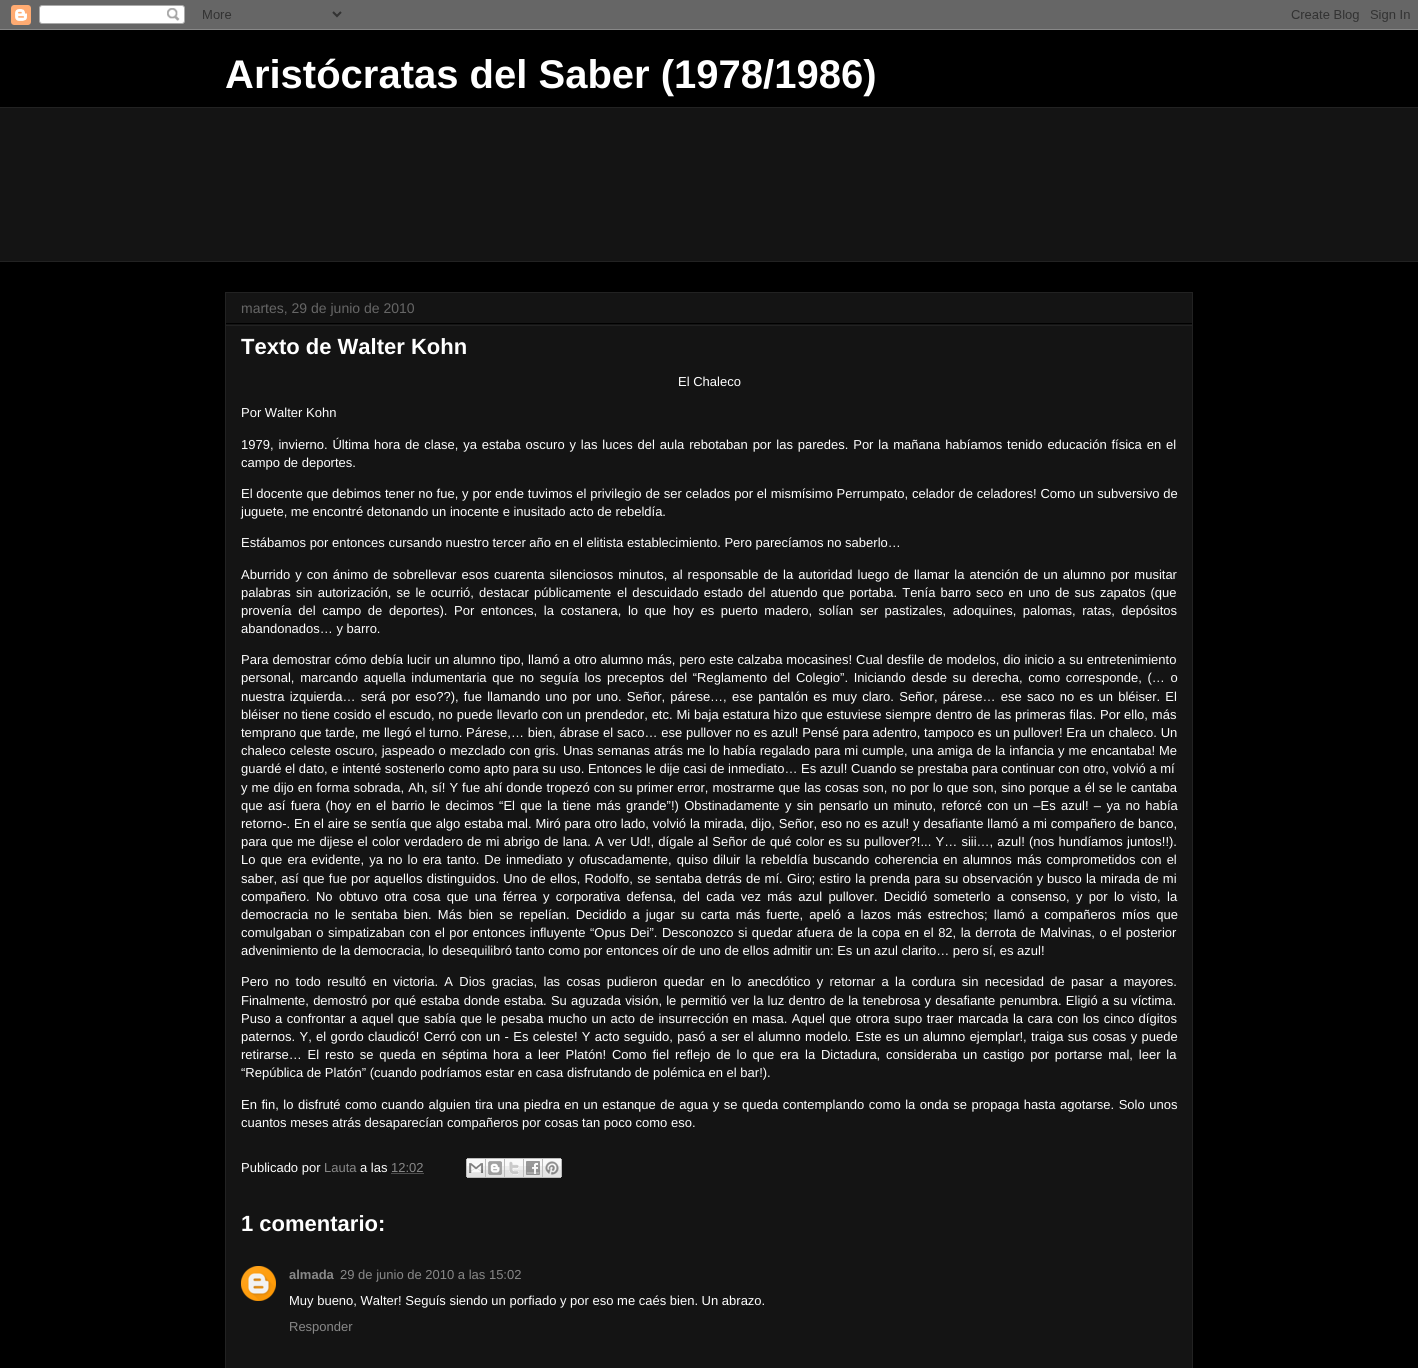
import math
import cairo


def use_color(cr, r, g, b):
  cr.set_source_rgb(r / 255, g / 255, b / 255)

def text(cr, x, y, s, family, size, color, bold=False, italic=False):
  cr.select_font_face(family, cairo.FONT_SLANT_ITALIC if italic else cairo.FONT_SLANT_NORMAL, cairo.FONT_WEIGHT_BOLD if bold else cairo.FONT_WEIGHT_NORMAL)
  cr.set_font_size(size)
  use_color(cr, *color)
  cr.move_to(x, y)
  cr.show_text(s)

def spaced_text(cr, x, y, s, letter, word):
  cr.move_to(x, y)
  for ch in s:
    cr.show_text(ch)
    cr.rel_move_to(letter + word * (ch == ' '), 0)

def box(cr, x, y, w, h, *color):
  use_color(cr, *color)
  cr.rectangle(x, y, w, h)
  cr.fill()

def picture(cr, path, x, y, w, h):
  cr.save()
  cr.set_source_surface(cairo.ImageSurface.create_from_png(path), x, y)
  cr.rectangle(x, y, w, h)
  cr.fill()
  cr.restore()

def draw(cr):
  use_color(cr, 0, 0, 0)
  cr.paint()
  picture(cr, "img_01.png", 0, 0, 1418, 30)
  box(cr, 0, 108, 1418, 153, 20, 20, 20)
  box(cr, 0, 107, 1418, 1, 34, 34, 34)
  box(cr, 0, 261, 1418, 1, 34, 34, 34)
  use_color(cr, 20, 20, 20)
  cr.rectangle(225.5, 292.5, 967, 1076)
  cr.fill_preserve()
  use_color(cr, 34, 34, 34)
  cr.set_line_width(1)
  cr.stroke()
  box(cr, 226, 323, 966, 1, 0, 0, 0)
  box(cr, 226, 325, 966, 1, 34, 34, 34)
  cr.new_path()
  cr.move_to(391.5, 1173.5)
  cr.line_to(424, 1173.5)
  use_color(cr, 136, 136, 136)
  cr.set_dash([1, 1])
  cr.stroke()
  picture(cr, "img_02.png", 466, 1158, 20, 20)
  picture(cr, "img_03.png", 486, 1158, 19, 20)
  picture(cr, "img_04.png", 505, 1158, 19, 20)
  picture(cr, "img_05.png", 524, 1158, 19, 20)
  picture(cr, "img_06.png", 543, 1158, 19, 20)
  picture(cr, "img_07.png", 241, 1266, 35, 35)
  text(cr, 225, 88, "Aristócratas del Saber (1978/1986)", "Liberation Sans", 40, (255, 255, 255), bold=True)
  text(cr, 241, 313, "martes, 29 de junio de 2010", "Liberation Sans", 14, (102, 102, 102))
  text(cr, 241, 354, "Texto de Walter Kohn", "Liberation Sans", 22, (255, 255, 255), bold=True)
  text(cr, 678, 386, "El Chaleco", "Liberation Sans", 13, (255, 255, 255))
  text(cr, 241, 417, "Por Walter Kohn", "Liberation Sans", 13, (255, 255, 255))
  spaced_text(cr, 241, 449, "1979, invierno. Última hora de clase, ya estaba oscuro y las luces del aula rebotaban por las paredes. Por la mañana habíamos tenido educación física en el", 0, 1.25)
  text(cr, 241, 467, "campo de deportes.", "Liberation Sans", 13, (255, 255, 255))
  spaced_text(cr, 241, 498, "El docente que debimos tener no fue, y por ende tuvimos el privilegio de ser celados por el mismísimo Perrumpato, celador de celadores! Como un subversivo de", 0, 0.2)
  text(cr, 241, 516, "juguete, me encontré detonando un inocente e inusitado acto de rebeldía.", "Liberation Sans", 13, (255, 255, 255))
  text(cr, 241, 547, "Estábamos por entonces cursando nuestro tercer año en el elitista establecimiento. Pero parecíamos no saberlo…", "Liberation Sans", 13, (255, 255, 255))
  spaced_text(cr, 241, 579, "Aburrido y con ánimo de sobrellevar esos cuarenta silenciosos minutos, al responsable de la autoridad luego de llamar la atención de un alumno por musitar", 0, 1.45)
  spaced_text(cr, 241, 597, "palabras sin autorización, se le ocurrió,", 0, 1.5)
  spaced_text(cr, 479, 597, "destacar públicamente", 0, 1.5)
  spaced_text(cr, 617, 597, "el descuidado estado del atuendo que portaba. Tenía barro seco en uno de sus zapatos (que", 0, 1.5)
  spaced_text(cr, 241, 615, "provenía del campo de deportes).", 0, 3)
  spaced_text(cr, 454, 615, "Por entonces, la costanera, lo que hoy es puerto madero, solían ser pastizales, adoquines, palomas, ratas, depósitos", 0, 3)
  text(cr, 241, 633, "abandonados… y barro.", "Liberation Sans", 13, (255, 255, 255))
  spaced_text(cr, 241, 664, "Para demostrar cómo debía lucir un alumno tipo, llamó a otro alumno más, pero este calzaba mocasines! Cual desfile de modelos, dio inicio a su entretenimiento", 0, 0.3)
  spaced_text(cr, 241, 682, "personal, marcando aquella indumentaria que no seguía los preceptos del “Reglamento del Colegio”. Iniciando desde su derecha, como corresponde, (… o", 0, 2.1)
  spaced_text(cr, 241, 701, "nuestra izquierda… será por eso??), fue llamando uno por uno. Señor, párese…, ese pantalón es muy claro. Señor, párese… ese saco no es un bléiser. El", 0, 1.65)
  spaced_text(cr, 241, 719, "bléiser no tiene cosido el escudo, no puede llevarlo con un prendedor, etc. Mi baja estatura hizo que estuviese siempre dentro de las primeras filas. Por ello, más", 0, 0.25)
  spaced_text(cr, 241, 737, "temprano que tarde, me llegó el turno. Párese,… bien, ábrase el saco… ese pullover no es azul! Pensé para adentro, tampoco es un pullover! Era un chaleco. Un", 0, 0.15)
  spaced_text(cr, 241, 755, "chaleco celeste oscuro, jaspeado o mezclado con gris. Unas semanas atrás me lo había regalado para mi cumple, una amiga de la infancia y me encantaba! Me", 0, 0.4)
  text(cr, 241, 773, "guardé el dato, e intenté sostenerlo como apto para su uso. Entonces le dije casi de inmediato… Es azul! Cuando se prestaba para continuar con otro, volvió a mí", "Liberation Sans", 13, (255, 255, 255))
  spaced_text(cr, 241, 792, "y me dijo en forma sobrada, Ah, sí! Y fue ahí donde tropezó con su primer error, mostrarme que las cosas son, no por lo que son, sino porque a él se le cantaba", 0, 0.4)
  spaced_text(cr, 241, 810, "que así fuera (hoy en el barrio le decimos “El que la tiene más grande”!) Obstinadamente y sin pensarlo un minuto, reforcé con un –Es azul! – ya no había", 0, 1.7)
  spaced_text(cr, 241, 828, "retorno-. En el aire se sentía que algo estaba mal. Miró para otro lado, volvió la mirada, dijo, Señor, eso no es azul! y desafiante llamó a mi compañero de banco,", 0, 0.25)
  spaced_text(cr, 241, 846, "para que me dijese el color verdadero de mi abrigo de lana. A ver Ud!, dígale al Señor de qué color es su pullover?!... Y… siii…, azul! (nos hundíamos juntos!!).", 0, 0.6)
  spaced_text(cr, 241, 864, "Lo que era evidente, ya no lo era tanto. De inmediato y ofuscadamente, quiso diluir la rebeldía buscando coherencia en alumnos más comprometidos con el", 0, 1.5)
  spaced_text(cr, 241, 883, "saber, así que fue por aquellos distinguidos. Uno de ellos, Rodolfo, se sentaba detrás de mí. Giro; estiro la prenda para su observación y", 0, 0.6)
  spaced_text(cr, 1047, 883, "busco la mirada de mi", 0, 0.6)
  spaced_text(cr, 241, 901, "compañero. No obtuvo otra cosa que una férrea y corporativa defensa, del cada vez más azul pullover. Decidió someterlo a consenso, y por lo visto, la", 0, 2.7)
  spaced_text(cr, 241, 919, "democracia no le sentaba bien. Más bien se repelían. Decidido a jugar su carta más fuerte, apeló a lazos más estrechos; llamó a compañeros míos que", 0, 2.5)
  spaced_text(cr, 241, 937, "comulgaban o simpatizaban con el por entonces influyente “Opus Dei”. Desconozco si quedar afuera de la copa en el 82, la derrota de Malvinas, o el posterior", 0, 0.9)
  text(cr, 241, 955, "advenimiento de la democracia, lo desequilibró tanto como por entonces oír de uno de ellos admitir un: Es un azul clarito… pero sí, es azul!", "Liberation Sans", 13, (255, 255, 255))
  spaced_text(cr, 241, 986, "Pero no todo resultó en victoria. A Dios gracias, las cosas pudieron quedar en lo anecdótico y retornar a la cordura sin necesidad de pasar a mayores.", 0, 2.7)
  spaced_text(cr, 241, 1005, "Finalmente, demostró por qué estaba donde estaba. Su aguzada visión, le permitió ver la luz dentro de la tenebrosa y desafiante penumbra. Eligió a su víctima.", 0, 0.6)
  spaced_text(cr, 241, 1023, "Puso a confrontar a aquel que sabía que le pesaba mucho un acto de insurrección en masa. Aquel que otrora supo traer marcada la cara con los cinco dígitos", 0, 0.85)
  spaced_text(cr, 241, 1041, "paternos. Y, el gordo claudicó! Cerró con un - Es celeste! Y acto seguido, pasó a ser el alumno modelo. Este es un alumno ejemplar!, traiga sus cosas y puede", 0, 0.7)
  spaced_text(cr, 241, 1059, "retirarse… El resto se queda en séptima hora a leer Platón! Como fiel reflejo de lo que era", 0, 2.25)
  spaced_text(cr, 805, 1059, "la Dictadura, consideraba un castigo por portarse mal, leer la", 0, 2.25)
  text(cr, 241, 1077, "“República de Platón” (cuando podríamos estar en casa disfrutando de polémica en el bar!).", "Liberation Sans", 13, (255, 255, 255))
  spaced_text(cr, 241, 1109, "En fin, lo disfruté como cuando alguien tira una piedra en un estanque de agua y se queda contemplando como la onda se propaga hasta agotarse. Solo unos", 0, 0.9)
  text(cr, 241, 1127, "cuantos meses atrás desaparecían compañeros por cosas tan poco como eso.", "Liberation Sans", 13, (255, 255, 255))
  text(cr, 241, 1172, "Publicado por", "Liberation Sans", 13, (255, 255, 255))
  text(cr, 324, 1172, "Lauta", "Liberation Sans", 13, (136, 136, 136))
  text(cr, 360, 1172, "a las", "Liberation Sans", 13, (255, 255, 255))
  text(cr, 391, 1172, "12:02", "Liberation Sans", 13, (136, 136, 136))
  text(cr, 241, 1231, "1 comentario:", "Liberation Sans", 22, (255, 255, 255), bold=True)
  text(cr, 289, 1279, "almada", "Liberation Sans", 13, (136, 136, 136), bold=True)
  text(cr, 340, 1279, "29 de junio de 2010 a las 15:02", "Liberation Sans", 13, (136, 136, 136))
  text(cr, 289, 1305, "Muy bueno, Walter! Seguís siendo un porfiado y por eso me caés bien. Un abrazo.", "Liberation Sans", 13, (255, 255, 255))
  text(cr, 289, 1331, "Responder", "Liberation Sans", 13, (136, 136, 136))


surface = cairo.ImageSurface(cairo.FORMAT_RGB24, 1418, 1368)
cr = cairo.Context(surface)
options = cairo.FontOptions()
options.set_hint_metrics(cairo.HINT_METRICS_OFF)
options.set_hint_style(cairo.HINT_STYLE_NONE)
cr.set_font_options(options)
cr.set_miter_limit(4)
draw(cr)
surface.write_to_png("out.png")
